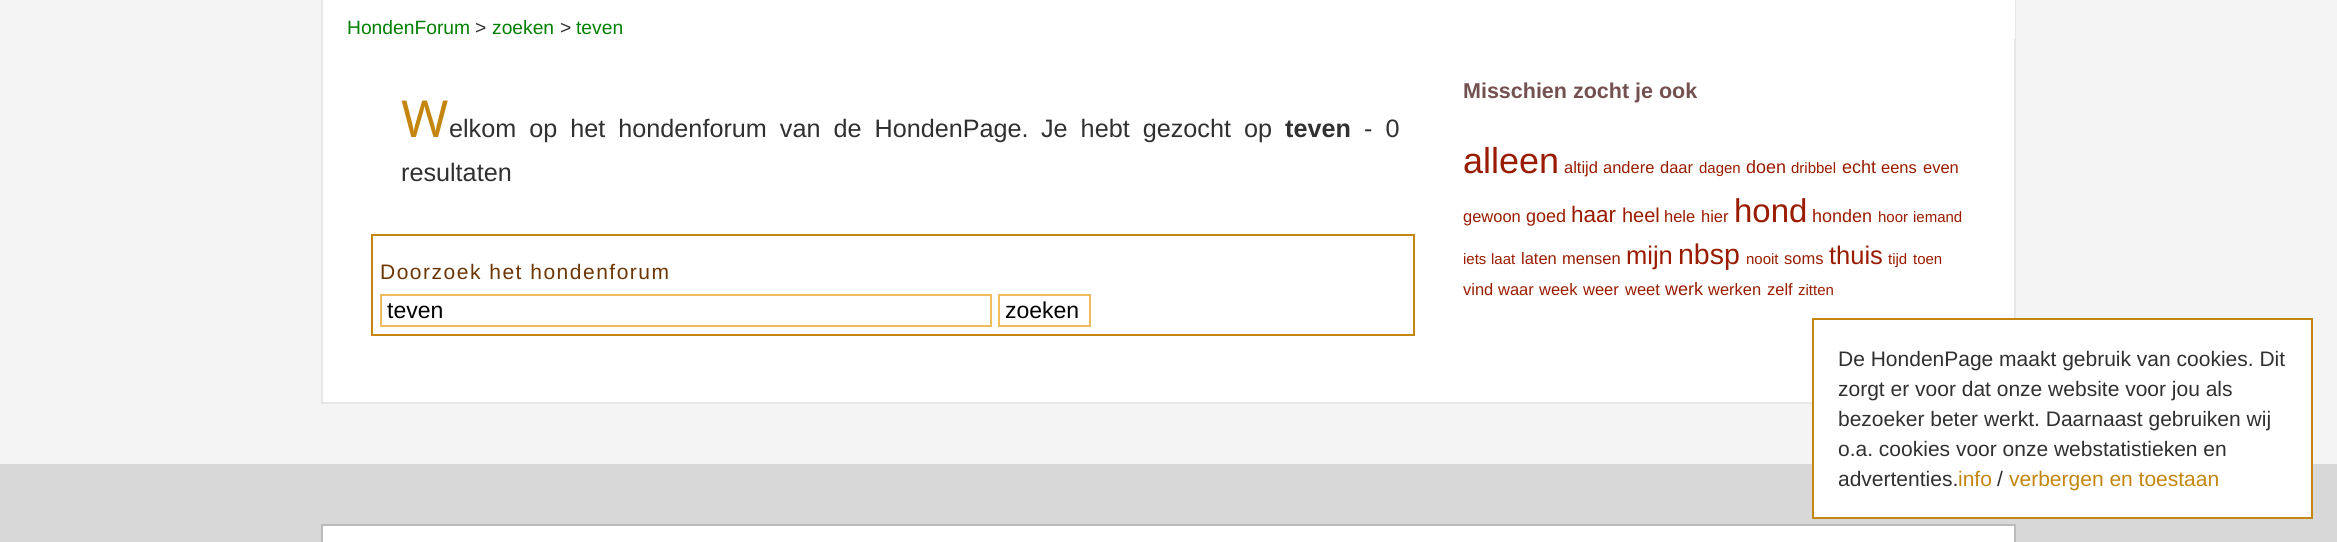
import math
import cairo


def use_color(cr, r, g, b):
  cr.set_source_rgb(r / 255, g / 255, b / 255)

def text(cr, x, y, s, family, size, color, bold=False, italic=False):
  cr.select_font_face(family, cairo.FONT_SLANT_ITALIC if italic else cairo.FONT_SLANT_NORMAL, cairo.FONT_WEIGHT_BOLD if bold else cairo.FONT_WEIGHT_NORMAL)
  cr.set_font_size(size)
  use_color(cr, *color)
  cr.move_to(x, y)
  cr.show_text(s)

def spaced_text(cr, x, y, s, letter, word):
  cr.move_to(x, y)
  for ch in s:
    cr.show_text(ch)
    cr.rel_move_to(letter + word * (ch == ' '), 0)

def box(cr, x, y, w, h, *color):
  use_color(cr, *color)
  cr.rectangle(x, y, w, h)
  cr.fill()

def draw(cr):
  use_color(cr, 244, 244, 244)
  cr.paint()
  box(cr, 323, 39, 1691, 363, 255, 255, 255)
  cr.rectangle(322, -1, 1693, 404)
  use_color(cr, 231, 231, 231)
  cr.stroke()
  box(cr, 323, 0, 1692, 39, 255, 255, 255)
  cr.rectangle(372, 235, 1042, 100)
  use_color(cr, 196, 134, 15)
  cr.stroke()
  cr.rectangle(381, 295, 610, 31)
  use_color(cr, 238, 188, 92)
  cr.stroke()
  cr.rectangle(999, 295, 91, 31)
  cr.stroke()
  box(cr, 0, 464, 2337, 78, 216, 216, 216)
  use_color(cr, 255, 255, 255)
  cr.rectangle(1813, 319, 499, 199)
  cr.fill_preserve()
  use_color(cr, 196, 134, 15)
  cr.stroke()
  use_color(cr, 255, 255, 255)
  cr.rectangle(322, 525, 1693, 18)
  cr.fill_preserve()
  use_color(cr, 187, 187, 187)
  cr.stroke()
  text(cr, 347, 34, "HondenForum", "Liberation Sans", 19.25, (0, 128, 0))
  text(cr, 475, 34, ">", "Liberation Sans", 19.25, (48, 48, 48))
  text(cr, 492, 34, "zoeken", "Liberation Sans", 19.25, (0, 128, 0))
  text(cr, 560, 34, ">", "Liberation Sans", 19.25, (48, 48, 48))
  text(cr, 576, 34, "teven", "Liberation Sans", 19.25, (0, 128, 0))
  text(cr, 401, 137, "W", "Noto Sans", 51, (196, 134, 15))
  cr.select_font_face("Liberation Sans")
  cr.set_font_size(25.2)
  use_color(cr, 48, 48, 48)
  spaced_text(cr, 449, 137, "elkom op het hondenforum van de HondenPage.", 0, 6)
  spaced_text(cr, 1041, 137, "Je hebt gezocht op", 0, 6)
  text(cr, 1285, 137, "teven", "Liberation Sans", 25.2, (48, 48, 48), bold=True)
  cr.select_font_face("Liberation Sans")
  spaced_text(cr, 1364, 137, "- 0", 0, 6)
  text(cr, 401, 181, "resultaten", "Liberation Sans", 25.2, (48, 48, 48))
  cr.set_font_size(21)
  use_color(cr, 108, 54, 6)
  spaced_text(cr, 380, 279, "Doorzoek het hondenforum", 1.5, 0)
  text(cr, 387, 318, "teven", "Liberation Sans", 23, (0, 0, 0))
  text(cr, 1005, 318, "zoeken", "Liberation Sans", 23, (0, 0, 0))
  text(cr, 1463, 98, "Misschien zocht je ook", "Liberation Sans", 21.5, (116, 81, 81), bold=True)
  text(cr, 1463, 173, "alleen", "Liberation Sans", 36, (153, 28, 0))
  text(cr, 1564, 173, "altijd", "Liberation Sans", 16.5, (153, 28, 0))
  text(cr, 1603, 173, "andere", "Liberation Sans", 16.5, (153, 28, 0))
  text(cr, 1660, 173, "daar", "Liberation Sans", 16.5, (153, 28, 0))
  text(cr, 1699, 173, "dagen", "Liberation Sans", 15, (153, 28, 0))
  text(cr, 1746, 173, "doen", "Liberation Sans", 18, (153, 28, 0))
  text(cr, 1791, 173, "dribbel", "Liberation Sans", 15, (153, 28, 0))
  text(cr, 1842, 173, "echt", "Liberation Sans", 18, (153, 28, 0))
  text(cr, 1881, 173, "eens", "Liberation Sans", 16.5, (153, 28, 0))
  text(cr, 1923, 173, "even", "Liberation Sans", 16.5, (153, 28, 0))
  text(cr, 1463, 222, "gewoon", "Liberation Sans", 16.5, (153, 28, 0))
  text(cr, 1526, 222, "goed", "Liberation Sans", 18, (153, 28, 0))
  text(cr, 1571, 222, "haar", "Liberation Sans", 22.5, (153, 28, 0))
  text(cr, 1622, 222, "heel", "Liberation Sans", 20, (153, 28, 0))
  text(cr, 1664, 222, "hele", "Liberation Sans", 16.5, (153, 28, 0))
  text(cr, 1701, 222, "hier", "Liberation Sans", 16.5, (153, 28, 0))
  text(cr, 1734, 222, "hond", "Liberation Sans", 33, (153, 28, 0))
  text(cr, 1812, 222, "honden", "Liberation Sans", 18, (153, 28, 0))
  text(cr, 1878, 222, "hoor", "Liberation Sans", 15, (153, 28, 0))
  text(cr, 1913, 222, "iemand", "Liberation Sans", 15, (153, 28, 0))
  text(cr, 1463, 264, "iets", "Liberation Sans", 15, (153, 28, 0))
  text(cr, 1491, 264, "laat", "Liberation Sans", 15, (153, 28, 0))
  text(cr, 1521, 264, "laten", "Liberation Sans", 16.5, (153, 28, 0))
  text(cr, 1562, 264, "mensen", "Liberation Sans", 16.5, (153, 28, 0))
  text(cr, 1626, 264, "mijn", "Liberation Sans", 25.5, (153, 28, 0))
  text(cr, 1678, 264, "nbsp", "Liberation Sans", 28.5, (153, 28, 0))
  text(cr, 1746, 264, "nooit", "Liberation Sans", 15, (153, 28, 0))
  text(cr, 1784, 264, "soms", "Liberation Sans", 16.5, (153, 28, 0))
  text(cr, 1829, 264, "thuis", "Liberation Sans", 25.5, (153, 28, 0))
  text(cr, 1888, 264, "tijd", "Liberation Sans", 15, (153, 28, 0))
  text(cr, 1913, 264, "toen", "Liberation Sans", 15, (153, 28, 0))
  text(cr, 1463, 295, "vind", "Liberation Sans", 16.5, (153, 28, 0))
  text(cr, 1498, 295, "waar", "Liberation Sans", 16.5, (153, 28, 0))
  text(cr, 1539, 295, "week", "Liberation Sans", 16.5, (153, 28, 0))
  text(cr, 1583, 295, "weer", "Liberation Sans", 16.5, (153, 28, 0))
  text(cr, 1625, 295, "weet", "Liberation Sans", 16.5, (153, 28, 0))
  text(cr, 1665, 295, "werk", "Liberation Sans", 18, (153, 28, 0))
  text(cr, 1708, 295, "werken", "Liberation Sans", 16.5, (153, 28, 0))
  text(cr, 1767, 295, "zelf", "Liberation Sans", 16.5, (153, 28, 0))
  text(cr, 1798, 295, "zitten", "Liberation Sans", 15, (153, 28, 0))
  text(cr, 1838, 366, "De HondenPage maakt gebruik van cookies. Dit", "Liberation Sans", 21, (48, 48, 48))
  text(cr, 1838, 396, "zorgt er voor dat onze website voor jou als", "Liberation Sans", 21, (48, 48, 48))
  text(cr, 1838, 426, "bezoeker beter werkt. Daarnaast gebruiken wij", "Liberation Sans", 21, (48, 48, 48))
  text(cr, 1838, 456, "o.a. cookies voor onze webstatistieken en", "Liberation Sans", 21, (48, 48, 48))
  text(cr, 1838, 486, "advertenties.", "Liberation Sans", 21, (48, 48, 48))
  text(cr, 1958, 486, "info", "Liberation Sans", 21, (196, 134, 15))
  text(cr, 1997, 486, "/", "Liberation Sans", 21, (48, 48, 48))
  text(cr, 2009, 486, "verbergen en toestaan", "Liberation Sans", 21, (196, 134, 15))


surface = cairo.ImageSurface(cairo.FORMAT_RGB24, 2337, 542)
cr = cairo.Context(surface)
options = cairo.FontOptions()
options.set_hint_metrics(cairo.HINT_METRICS_OFF)
options.set_hint_style(cairo.HINT_STYLE_NONE)
cr.set_font_options(options)
cr.set_miter_limit(4)
draw(cr)
surface.write_to_png("out.png")
